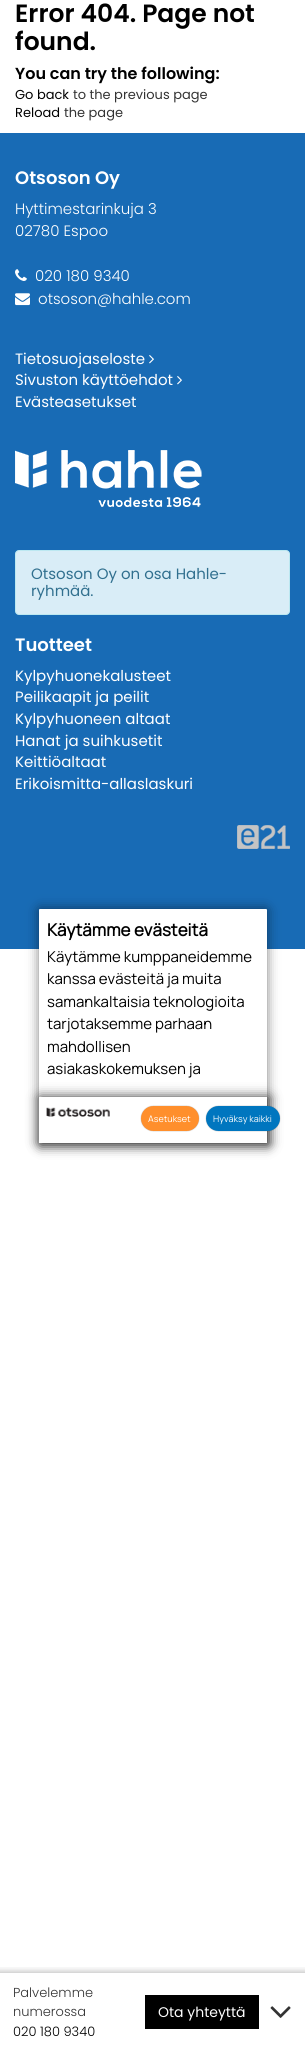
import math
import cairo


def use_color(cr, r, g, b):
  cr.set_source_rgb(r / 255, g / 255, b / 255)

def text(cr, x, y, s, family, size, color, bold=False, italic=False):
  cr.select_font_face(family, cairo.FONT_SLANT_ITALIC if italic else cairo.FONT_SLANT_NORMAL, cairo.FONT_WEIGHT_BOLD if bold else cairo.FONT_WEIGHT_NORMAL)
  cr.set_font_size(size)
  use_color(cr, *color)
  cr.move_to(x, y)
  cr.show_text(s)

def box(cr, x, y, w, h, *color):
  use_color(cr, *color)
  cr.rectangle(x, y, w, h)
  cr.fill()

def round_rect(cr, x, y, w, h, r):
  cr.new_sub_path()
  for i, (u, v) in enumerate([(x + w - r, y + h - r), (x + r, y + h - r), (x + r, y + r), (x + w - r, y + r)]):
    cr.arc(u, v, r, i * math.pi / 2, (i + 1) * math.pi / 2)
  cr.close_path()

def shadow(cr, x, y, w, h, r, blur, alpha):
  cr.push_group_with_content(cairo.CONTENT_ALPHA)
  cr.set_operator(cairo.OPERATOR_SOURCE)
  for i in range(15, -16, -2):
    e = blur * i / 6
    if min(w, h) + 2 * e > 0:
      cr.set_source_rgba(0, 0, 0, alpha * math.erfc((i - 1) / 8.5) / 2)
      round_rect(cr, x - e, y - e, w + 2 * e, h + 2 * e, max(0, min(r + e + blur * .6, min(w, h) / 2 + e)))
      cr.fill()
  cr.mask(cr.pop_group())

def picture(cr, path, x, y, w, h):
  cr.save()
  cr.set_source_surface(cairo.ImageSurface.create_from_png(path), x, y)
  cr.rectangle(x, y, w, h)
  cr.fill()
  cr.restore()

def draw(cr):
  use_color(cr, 255, 255, 255)
  cr.paint()
  box(cr, 0, 133, 305, 816, 24, 107, 181)
  picture(cr, "img_01.png", 15, 269, 12, 12)
  picture(cr, "img_02.png", 15, 293, 15, 13)
  picture(cr, "img_03.png", 149, 355, 5, 9)
  picture(cr, "img_03.png", 177, 376, 5, 9)
  picture(cr, "img_04.png", 15, 450, 187, 57)
  use_color(cr, 217, 237, 247)
  round_rect(cr, 15.5, 550.5, 274, 64, 3.5)
  cr.fill_preserve()
  use_color(cr, 188, 232, 241)
  cr.set_line_width(1)
  cr.stroke()
  picture(cr, "img_05.png", 237, 825, 53, 24)
  cr.save()
  cr.rectangle(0, 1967, 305, 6)
  cr.clip()
  use_color(cr, 61, 61, 61)
  shadow(cr, -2, 1971, 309, 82, 0, 3, 0.3)
  cr.restore()
  box(cr, 145, 1995, 114, 34, 0, 0, 0)
  picture(cr, "img_06.png", 270, 2006, 21, 12)
  use_color(cr, 0, 0, 0)
  shadow(cr, 39, 909, 228, 234, 1, 6, 0.5)
  use_color(cr, 255, 255, 255)
  round_rect(cr, 39, 909, 228, 234, 1)
  cr.fill()
  use_color(cr, 51, 51, 51)
  shadow(cr, 40, 1097, 229, 48, 0, 6, 1)
  box(cr, 39, 1097, 228, 46, 255, 255, 255)
  picture(cr, "img_07.png", 46, 1107, 64, 10)
  use_color(cr, 0, 0, 0)
  shadow(cr, 141, 1106, 58, 25, 12.5, 0.5, 0.3)
  use_color(cr, 255, 143, 44)
  round_rect(cr, 141, 1106, 58, 25, 12.5)
  cr.fill()
  use_color(cr, 0, 0, 0)
  shadow(cr, 206, 1106, 74, 25, 12.5, 0.5, 0.3)
  use_color(cr, 0, 118, 191)
  round_rect(cr, 206, 1106, 74, 25, 12.5)
  cr.fill()
  text(cr, 15, 22, "Error 404. Page not", "Poppins SemiBold", 25, (0, 0, 0))
  text(cr, 15, 50, "found.", "Poppins SemiBold", 25, (0, 0, 0))
  text(cr, 15, 79, "You can try the following:", "Poppins SemiBold", 16, (0, 0, 0))
  text(cr, 15, 99, "Go back", "Poppins", 13, (0, 0, 0))
  text(cr, 73, 99, "to the previous page", "Poppins", 13, (51, 51, 51))
  text(cr, 15, 117, "Reload", "Poppins", 13, (0, 0, 0))
  text(cr, 64, 117, "the page", "Poppins", 13, (51, 51, 51))
  text(cr, 15, 184, "Otsoson Oy", "Poppins SemiBold", 18, (255, 255, 255))
  text(cr, 15, 214, "Hyttimestarinkuja 3", "Poppins Light", 15, (255, 255, 255))
  text(cr, 15, 236, "02780 Espoo", "Poppins Light", 15, (255, 255, 255))
  text(cr, 35, 281, "020 180 9340", "Poppins Light", 15, (255, 255, 255))
  text(cr, 38, 304, "otsoson@hahle.com", "Poppins Light", 15, (255, 255, 255))
  text(cr, 15, 364, "Tietosuojaseloste", "Poppins", 15, (255, 255, 255))
  text(cr, 15, 385, "Sivuston käyttöehdot", "Poppins", 15, (255, 255, 255))
  text(cr, 15, 407, "Evästeasetukset", "Poppins", 15, (255, 255, 255))
  text(cr, 31, 579, "Otsoson Oy on osa Hahle-", "Poppins", 15, (49, 112, 143))
  text(cr, 31, 596, "ryhmää.", "Poppins", 15, (49, 112, 143))
  text(cr, 15, 651, "Tuotteet", "Poppins SemiBold", 18, (255, 255, 255))
  text(cr, 15, 681, "Kylpyhuonekalusteet", "Poppins", 15, (255, 255, 255))
  text(cr, 15, 702, "Peilikaapit ja peilit", "Poppins", 15, (255, 255, 255))
  text(cr, 15, 724, "Kylpyhuoneen altaat", "Poppins", 15, (255, 255, 255))
  text(cr, 15, 746, "Hanat ja suihkusetit", "Poppins", 15, (255, 255, 255))
  text(cr, 15, 767, "Keittiöaltaat", "Poppins", 15, (255, 255, 255))
  text(cr, 15, 789, "Erikoismitta-allaslaskuri", "Poppins", 15, (255, 255, 255))
  text(cr, 13, 1997, "Palvelemme", "Poppins Light", 13, (51, 51, 51))
  text(cr, 13, 2016, "numerossa", "Poppins Light", 13, (51, 51, 51))
  text(cr, 13, 2036, "020 180 9340", "Poppins Light", 13, (0, 0, 0))
  text(cr, 158, 2017, "Ota yhteyttä", "Poppins", 14, (255, 255, 255))
  text(cr, 47, 936, "Käytämme evästeitä", "Manrope", 17, (0, 0, 0), bold=True)
  text(cr, 47, 962, "Käytämme kumppaneidemme", "Manrope ExtraLight", 15, (0, 0, 0))
  text(cr, 47, 984, "kanssa evästeitä ja muita", "Manrope ExtraLight", 15, (0, 0, 0))
  text(cr, 47, 1007, "samankaltaisia teknologioita", "Manrope ExtraLight", 15, (0, 0, 0))
  text(cr, 47, 1029, "tarjotaksemme parhaan", "Manrope ExtraLight", 15, (0, 0, 0))
  text(cr, 47, 1052, "mahdollisen", "Manrope ExtraLight", 15, (0, 0, 0))
  text(cr, 47, 1074, "asiakaskokemuksen ja", "Manrope ExtraLight", 15, (0, 0, 0))
  text(cr, 148, 1122, "Asetukset", "Manrope ExtraLight", 9, (255, 255, 255))
  text(cr, 213, 1122, "Hyväksy kaikki", "Manrope ExtraLight", 9, (255, 255, 255))


surface = cairo.ImageSurface(cairo.FORMAT_RGB24, 305, 2051)
cr = cairo.Context(surface)
options = cairo.FontOptions()
options.set_hint_metrics(cairo.HINT_METRICS_OFF)
options.set_hint_style(cairo.HINT_STYLE_NONE)
cr.set_font_options(options)
cr.set_miter_limit(4)
draw(cr)
surface.write_to_png("out.png")
